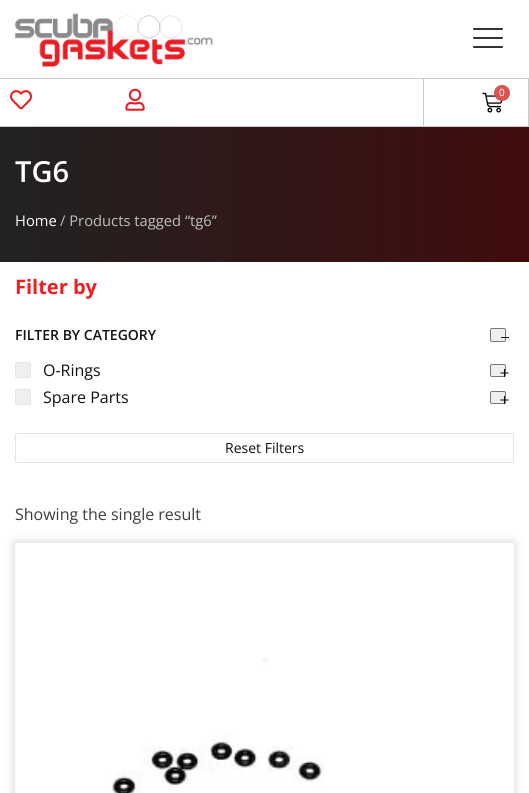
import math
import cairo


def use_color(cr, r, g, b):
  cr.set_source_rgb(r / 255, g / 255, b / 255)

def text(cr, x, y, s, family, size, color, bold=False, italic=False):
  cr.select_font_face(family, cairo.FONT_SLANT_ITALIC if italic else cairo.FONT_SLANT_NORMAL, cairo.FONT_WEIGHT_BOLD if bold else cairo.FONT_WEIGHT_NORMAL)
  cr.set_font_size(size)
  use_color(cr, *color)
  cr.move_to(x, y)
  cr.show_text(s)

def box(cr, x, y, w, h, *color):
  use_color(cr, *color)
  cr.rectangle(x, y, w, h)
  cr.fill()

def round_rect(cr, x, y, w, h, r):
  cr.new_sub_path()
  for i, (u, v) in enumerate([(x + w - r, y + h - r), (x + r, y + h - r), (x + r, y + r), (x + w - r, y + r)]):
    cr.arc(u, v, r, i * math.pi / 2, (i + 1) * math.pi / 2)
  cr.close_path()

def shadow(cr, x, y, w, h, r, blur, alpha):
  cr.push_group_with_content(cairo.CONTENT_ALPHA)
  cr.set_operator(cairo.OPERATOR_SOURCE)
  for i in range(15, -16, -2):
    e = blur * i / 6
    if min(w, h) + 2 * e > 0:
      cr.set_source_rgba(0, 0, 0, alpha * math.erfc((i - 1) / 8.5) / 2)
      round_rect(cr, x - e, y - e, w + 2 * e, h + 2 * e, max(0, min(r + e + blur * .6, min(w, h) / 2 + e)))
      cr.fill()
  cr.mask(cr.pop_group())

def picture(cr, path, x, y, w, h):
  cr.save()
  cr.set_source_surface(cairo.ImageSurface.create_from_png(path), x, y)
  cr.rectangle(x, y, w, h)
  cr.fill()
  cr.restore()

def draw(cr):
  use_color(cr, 255, 255, 255)
  cr.paint()
  picture(cr, "img_01.png", 14, 13, 199, 54)
  use_color(cr, 51, 51, 51)
  round_rect(cr, 473, 37, 30, 2, 1)
  cr.fill()
  round_rect(cr, 473, 28, 30, 2, 1)
  cr.fill()
  round_rect(cr, 473, 46, 30, 2, 1)
  cr.fill()
  box(cr, 0, 78, 529, 1, 204, 204, 204)
  box(cr, 0, 126, 529, 1, 204, 204, 204)
  picture(cr, "img_02.png", 10, 90, 22, 20)
  picture(cr, "img_03.png", 125, 88, 20, 23)
  box(cr, 528, 79, 1, 47, 204, 204, 204)
  box(cr, 423, 79, 1, 47, 204, 204, 204)
  picture(cr, "img_04.png", 482, 92, 21, 21)
  use_color(cr, 217, 83, 79)
  cr.arc(502, 93, 8, 0, 2 * math.pi)
  cr.fill()
  gradient = cairo.LinearGradient(0, 195, 529, 194)
  gradient.add_color_stop_rgba(0, 0.133, 0.133, 0.133, 1)
  gradient.add_color_stop_rgba(1, 0.255, 0.047, 0.051, 1)
  cr.set_source(gradient)
  cr.rectangle(0, 127, 529, 135)
  cr.fill()
  use_color(cr, 239, 239, 239)
  round_rect(cr, 490.5, 328.5, 15, 13, 1.5)
  cr.fill_preserve()
  use_color(cr, 118, 118, 118)
  cr.set_line_width(1)
  cr.stroke()
  box(cr, 501, 337, 8, 1, 17, 17, 17)
  use_color(cr, 239, 239, 239)
  round_rect(cr, 15.5, 362.5, 15, 15, 1.5)
  cr.fill_preserve()
  use_color(cr, 229, 229, 229)
  cr.stroke()
  use_color(cr, 239, 239, 239)
  round_rect(cr, 490.5, 364.5, 15, 12, 1.5)
  cr.fill_preserve()
  use_color(cr, 118, 118, 118)
  cr.stroke()
  picture(cr, "img_05.png", 500, 368, 9, 10)
  use_color(cr, 239, 239, 239)
  round_rect(cr, 15.5, 389.5, 15, 15, 1.5)
  cr.fill_preserve()
  use_color(cr, 229, 229, 229)
  cr.stroke()
  use_color(cr, 239, 239, 239)
  round_rect(cr, 490.5, 391.5, 15, 12, 1.5)
  cr.fill_preserve()
  use_color(cr, 118, 118, 118)
  cr.stroke()
  picture(cr, "img_05.png", 500, 395, 9, 10)
  round_rect(cr, 15.5, 433.5, 498, 29, 1.5)
  use_color(cr, 229, 229, 229)
  cr.stroke()
  cr.save()
  cr.set_fill_rule(cairo.FILL_RULE_EVEN_ODD)
  cr.new_path()
  cr.move_to(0, 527)
  cr.line_to(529, 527)
  cr.line_to(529, 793)
  cr.line_to(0, 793)
  cr.close_path()
  cr.move_to(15, 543)
  cr.line_to(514, 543)
  cr.line_to(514, 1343)
  cr.line_to(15, 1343)
  cr.close_path()
  cr.clip()
  use_color(cr, 0, 0, 0)
  shadow(cr, 15, 543, 499, 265, 0, 5, 0.18)
  cr.restore()
  picture(cr, "img_06.png", 111, 658, 214, 135)
  text(cr, 499, 96, "0", "Open Sans", 10, (255, 255, 255))
  text(cr, 15, 182, "TG6", "Open Sans SemiBold", 29, (255, 255, 255))
  text(cr, 15, 226, "Home", "Open Sans", 14.75, (255, 255, 255))
  text(cr, 60, 226, "/ Products tagged “tg6”", "Open Sans", 14.75, (192, 192, 192))
  text(cr, 15, 294, "Filter by", "Open Sans", 20, (238, 30, 35), bold=True)
  text(cr, 15, 340, "FILTER BY CATEGORY", "Open Sans SemiBold", 14, (17, 17, 17))
  text(cr, 43, 376, "O-Rings", "Open Sans", 16, (17, 17, 17))
  text(cr, 43, 403, "Spare Parts", "Open Sans", 16, (17, 17, 17))
  text(cr, 225, 453, "Reset Filters", "Open Sans", 14, (17, 17, 17))
  text(cr, 15, 520, "Showing the single result", "Open Sans", 16, (61, 61, 61))


surface = cairo.ImageSurface(cairo.FORMAT_RGB24, 529, 793)
cr = cairo.Context(surface)
options = cairo.FontOptions()
options.set_hint_metrics(cairo.HINT_METRICS_OFF)
options.set_hint_style(cairo.HINT_STYLE_NONE)
cr.set_font_options(options)
cr.set_miter_limit(4)
draw(cr)
surface.write_to_png("out.png")
